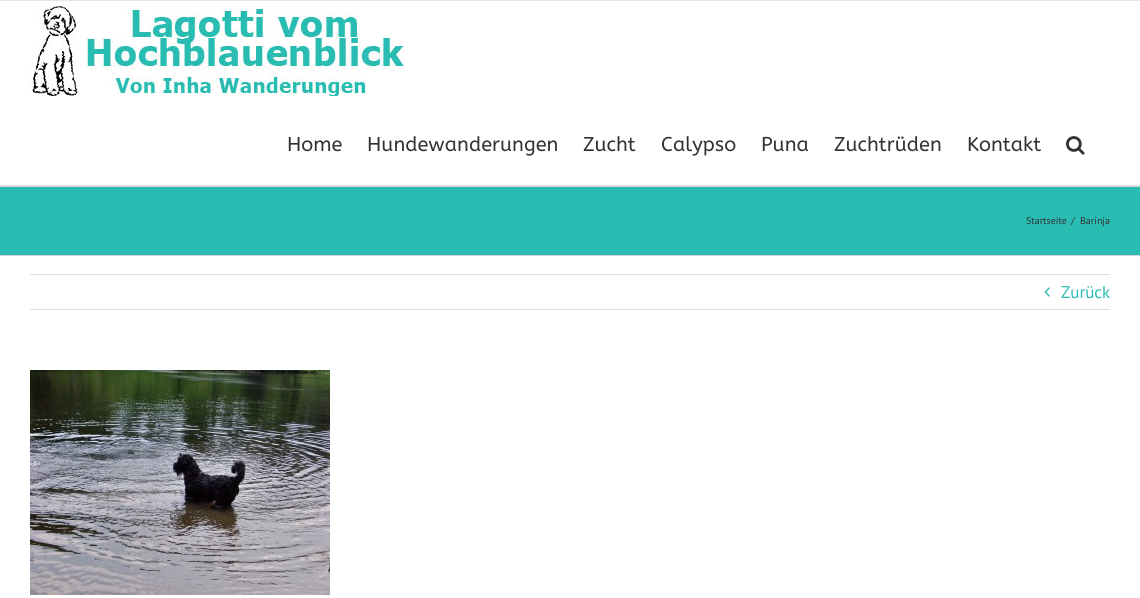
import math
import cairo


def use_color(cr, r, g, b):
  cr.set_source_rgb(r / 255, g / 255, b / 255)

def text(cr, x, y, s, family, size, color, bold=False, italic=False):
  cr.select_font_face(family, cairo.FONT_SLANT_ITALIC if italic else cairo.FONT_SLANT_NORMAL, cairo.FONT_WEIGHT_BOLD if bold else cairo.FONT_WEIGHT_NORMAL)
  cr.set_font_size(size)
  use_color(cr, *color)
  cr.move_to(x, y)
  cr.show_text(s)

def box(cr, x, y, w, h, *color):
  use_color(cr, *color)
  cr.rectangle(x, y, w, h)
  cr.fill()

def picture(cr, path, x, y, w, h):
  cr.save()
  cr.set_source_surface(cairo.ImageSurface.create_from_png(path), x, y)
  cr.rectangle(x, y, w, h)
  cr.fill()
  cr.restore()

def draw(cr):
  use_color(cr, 255, 255, 255)
  cr.paint()
  box(cr, 0, 0, 1140, 1, 229, 229, 229)
  box(cr, 0, 185, 1140, 1, 229, 229, 229)
  picture(cr, "img_01.png", 30, 6, 374, 90)
  picture(cr, "img_02.png", 1066, 136, 19, 19)
  box(cr, 0, 187, 1140, 68, 41, 188, 178)
  box(cr, 0, 186, 1140, 1, 210, 211, 212)
  box(cr, 0, 255, 1140, 1, 210, 211, 212)
  box(cr, 30, 274, 1080, 1, 224, 222, 222)
  box(cr, 30, 309, 1080, 1, 224, 222, 222)
  picture(cr, "img_03.png", 1044, 287, 6, 10)
  picture(cr, "img_04.png", 30, 370, 300, 225)
  text(cr, 287, 151, "Home", "ABeeZee", 20, (51, 51, 51))
  text(cr, 367, 151, "Hundewanderungen", "ABeeZee", 20, (51, 51, 51))
  text(cr, 583, 151, "Zucht", "ABeeZee", 20, (51, 51, 51))
  text(cr, 661, 151, "Calypso", "ABeeZee", 20, (51, 51, 51))
  text(cr, 761, 151, "Puna", "ABeeZee", 20, (51, 51, 51))
  text(cr, 834, 151, "Zuchtrüden", "ABeeZee", 20, (51, 51, 51))
  text(cr, 967, 151, "Kontakt", "ABeeZee", 20, (51, 51, 51))
  text(cr, 1026, 224, "Startseite", "PT Sans", 10, (51, 51, 51))
  text(cr, 1071, 224, "/", "PT Sans", 10, (51, 51, 51))
  text(cr, 1080, 224, "Barinja", "PT Sans", 10, (51, 51, 51))
  text(cr, 1061, 298, "Zurück", "PT Sans", 17, (41, 188, 178))


surface = cairo.ImageSurface(cairo.FORMAT_RGB24, 1140, 598)
cr = cairo.Context(surface)
options = cairo.FontOptions()
options.set_hint_metrics(cairo.HINT_METRICS_OFF)
options.set_hint_style(cairo.HINT_STYLE_NONE)
cr.set_font_options(options)
cr.set_miter_limit(4)
draw(cr)
surface.write_to_png("out.png")
